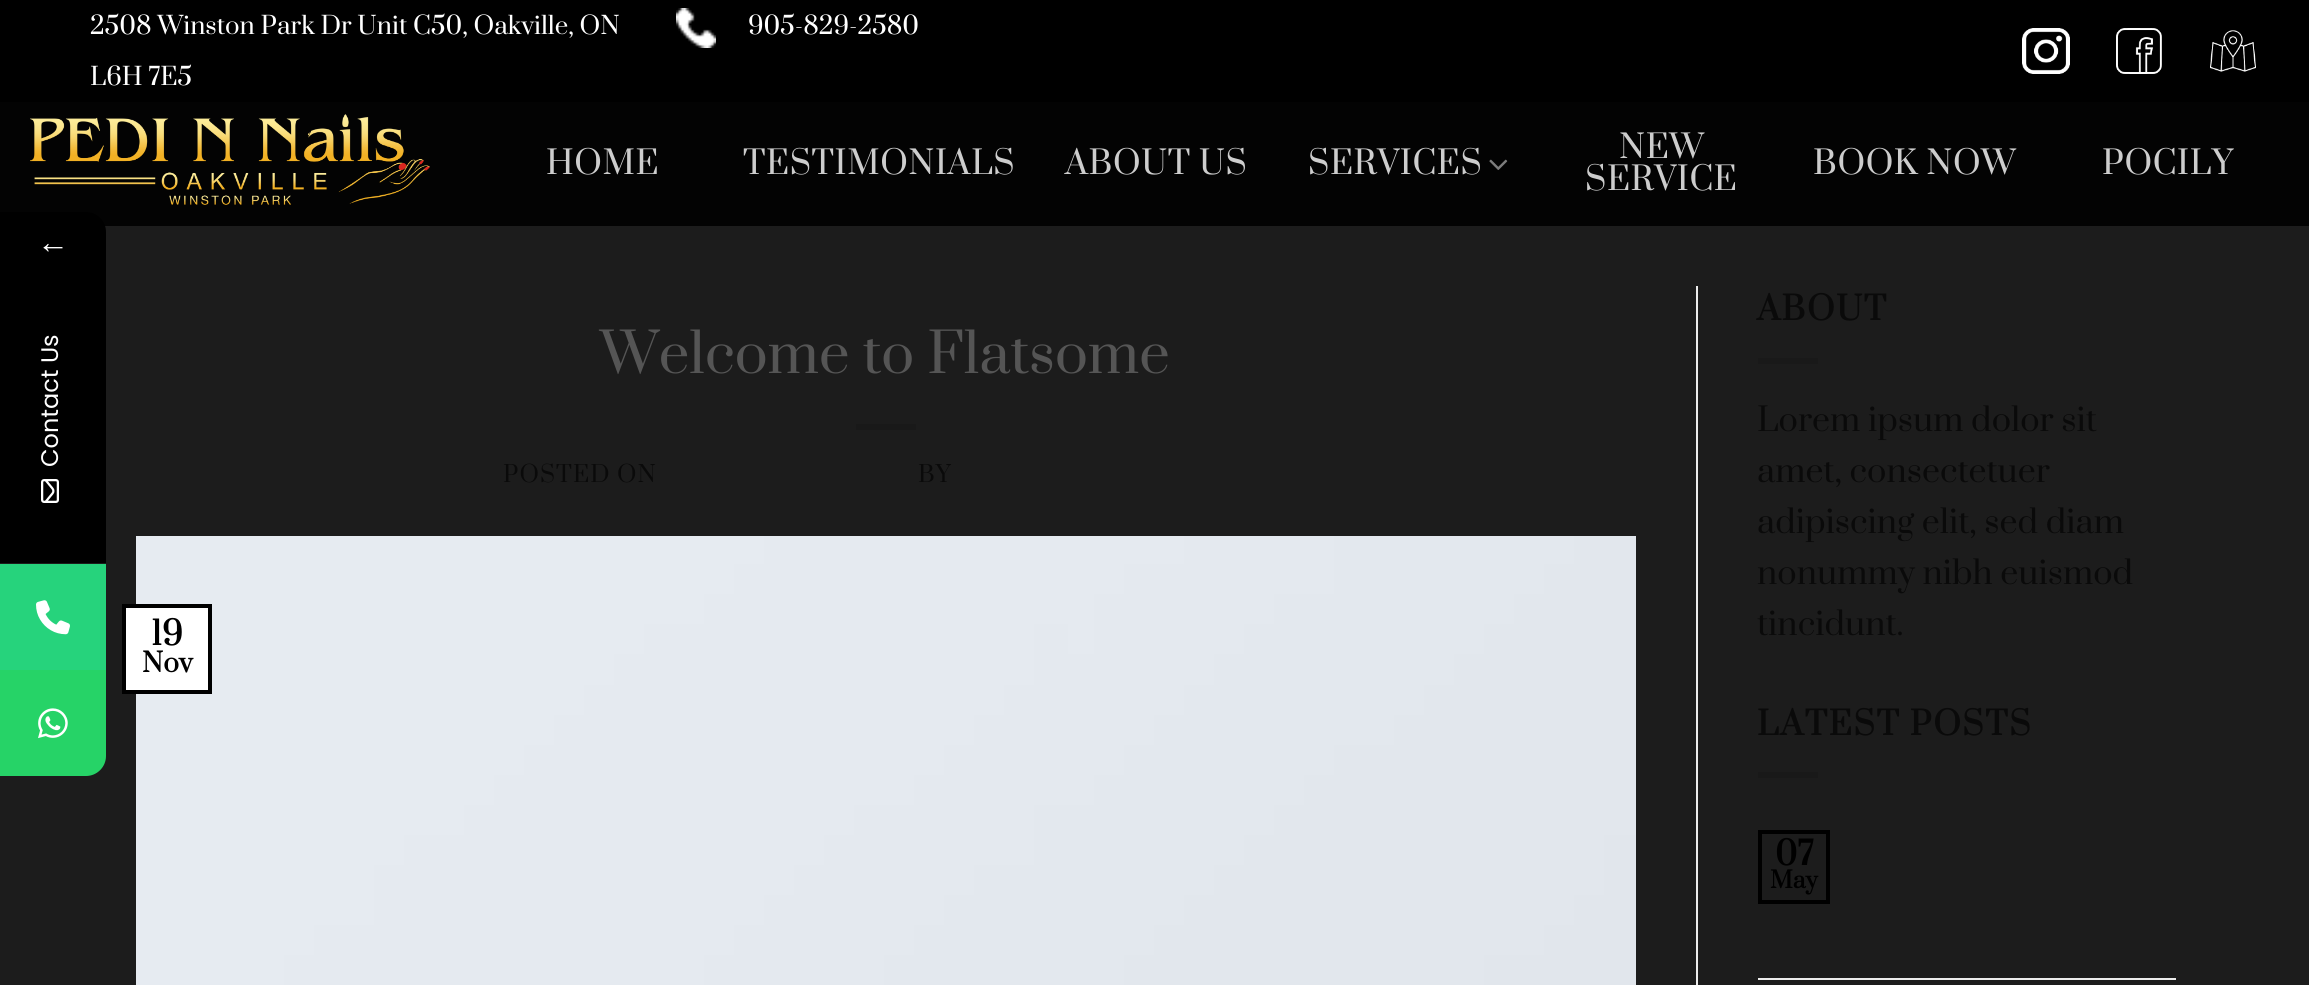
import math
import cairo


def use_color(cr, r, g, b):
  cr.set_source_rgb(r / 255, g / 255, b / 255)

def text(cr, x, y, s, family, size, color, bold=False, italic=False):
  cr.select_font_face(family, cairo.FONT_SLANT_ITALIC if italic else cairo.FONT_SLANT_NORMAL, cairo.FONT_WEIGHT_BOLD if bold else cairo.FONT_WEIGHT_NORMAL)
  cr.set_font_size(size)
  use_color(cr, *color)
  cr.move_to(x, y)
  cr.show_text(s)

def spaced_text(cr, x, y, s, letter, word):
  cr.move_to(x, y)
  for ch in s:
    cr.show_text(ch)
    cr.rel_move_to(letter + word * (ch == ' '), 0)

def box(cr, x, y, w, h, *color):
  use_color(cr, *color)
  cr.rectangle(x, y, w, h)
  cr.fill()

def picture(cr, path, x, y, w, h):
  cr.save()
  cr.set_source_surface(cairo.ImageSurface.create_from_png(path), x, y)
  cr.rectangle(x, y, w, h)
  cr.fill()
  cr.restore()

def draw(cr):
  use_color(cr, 28, 28, 28)
  cr.paint()
  box(cr, 0, 102, 2309, 124, 3, 3, 3)
  use_color(cr, 0, 0, 0)
  cr.new_path()
  cr.move_to(0, 212)
  cr.line_to(86, 212)
  cr.curve_to(97, 212, 106, 221, 106, 232)
  cr.line_to(106, 276)
  cr.line_to(0, 276)
  cr.close_path()
  cr.fill()
  box(cr, 0, 276, 106, 287, 0, 0, 0)
  picture(cr, "img_01.png", 41, 479, 18, 24)
  box(cr, 0, 564, 106, 106, 38, 211, 124)
  picture(cr, "img_02.png", 36, 600, 34, 35)
  use_color(cr, 38, 211, 103)
  cr.new_path()
  cr.move_to(0, 670)
  cr.line_to(106, 670)
  cr.line_to(106, 756)
  cr.curve_to(106, 767, 97, 776, 86, 776)
  cr.line_to(0, 776)
  cr.close_path()
  cr.fill()
  picture(cr, "img_03.png", 38, 708, 30, 31)
  box(cr, 0, 0, 2309, 102, 0, 0, 0)
  picture(cr, "img_04.png", 676, 8, 40, 40)
  picture(cr, "img_05.png", 2022, 28, 48, 46)
  picture(cr, "img_06.png", 2116, 28, 46, 46)
  picture(cr, "img_07.png", 2210, 30, 46, 42)
  picture(cr, "img_08.png", 30, 114, 400, 91)
  picture(cr, "img_09.png", 1489, 159, 19, 11)
  box(cr, 856, 424, 60, 6, 25, 25, 25)
  picture(cr, "img_10.png", 136, 536, 1500, 449)
  use_color(cr, 255, 255, 255)
  cr.rectangle(124, 606, 86, 86)
  cr.fill_preserve()
  use_color(cr, 0, 0, 0)
  cr.set_line_width(4)
  cr.stroke()
  box(cr, 1696, 286, 2, 699, 236, 236, 236)
  box(cr, 1758, 358, 60, 6, 25, 25, 25)
  box(cr, 1758, 772, 60, 6, 25, 25, 25)
  cr.rectangle(1760, 832, 68, 70)
  use_color(cr, 0, 0, 0)
  cr.stroke()
  box(cr, 1758, 978, 418, 2, 236, 236, 236)
  text(cr, 37, 253, "←", "Liberation Serif", 32, (255, 255, 255))
  cr.save()
  cr.translate(58, 467)
  cr.rotate(-90 * math.pi / 180)
  text(cr, 0, 0, "Contact Us", "Poppins", 24, (255, 255, 255))
  cr.restore()
  text(cr, 90, 34, "2508 Winston Park Dr Unit C50, Oakville, ON", "Prata", 24, (255, 255, 255))
  text(cr, 90, 85, "L6H 7E5", "Prata", 24, (255, 255, 255))
  text(cr, 748, 34, "905-829-2580", "Prata", 24, (255, 255, 255))
  cr.set_font_size(32)
  use_color(cr, 205, 205, 205)
  spaced_text(cr, 546, 174, "HOME", 0.6, 0)
  spaced_text(cr, 743, 174, "TESTIMONIALS", 0.6, 0)
  spaced_text(cr, 1065, 174, "ABOUT US", 0.6, 0)
  spaced_text(cr, 1308, 174, "SERVICES", 0.6, 0)
  spaced_text(cr, 1619, 158, "NEW", 0.6, 0)
  spaced_text(cr, 1585, 190, "SERVICE", 0.6, 0)
  spaced_text(cr, 1813, 174, "BOOK NOW", 0.6, 0)
  spaced_text(cr, 2102, 174, "POCILY", 0.6, 0)
  text(cr, 600, 373, "Welcome to Flatsome", "Prata", 54.4, (85, 85, 85))
  cr.set_font_size(22.5)
  use_color(cr, 10, 10, 10)
  spaced_text(cr, 503, 482, "POSTED ON", 1.1, 0)
  spaced_text(cr, 918, 482, "BY", 1.1, 0)
  text(cr, 151, 645, "19", "Prata", 32, (0, 0, 0), bold=True)
  text(cr, 142, 672, "Nov", "Prata", 26, (0, 0, 0), bold=True)
  cr.set_font_size(32)
  use_color(cr, 10, 10, 10)
  spaced_text(cr, 1757, 320, "ABOUT", 1.6, 0)
  text(cr, 1757, 431, "Lorem ipsum dolor sit", "Prata", 32, (10, 10, 10))
  text(cr, 1757, 482, "amet, consectetuer", "Prata", 32, (10, 10, 10))
  text(cr, 1757, 533, "adipiscing elit, sed diam", "Prata", 32, (10, 10, 10))
  text(cr, 1757, 584, "nonummy nibh euismod", "Prata", 32, (10, 10, 10))
  text(cr, 1757, 635, "tincidunt.", "Prata", 32, (10, 10, 10))
  cr.select_font_face("Prata", cairo.FONT_SLANT_NORMAL, cairo.FONT_WEIGHT_BOLD)
  spaced_text(cr, 1757, 735, "LATEST POSTS", 1.6, 0)
  text(cr, 1775, 865, "07", "Prata", 32, (0, 0, 0), bold=True)
  text(cr, 1770, 888, "May", "Prata", 22.5, (0, 0, 0), bold=True)


surface = cairo.ImageSurface(cairo.FORMAT_RGB24, 2309, 985)
cr = cairo.Context(surface)
options = cairo.FontOptions()
options.set_hint_metrics(cairo.HINT_METRICS_OFF)
options.set_hint_style(cairo.HINT_STYLE_NONE)
cr.set_font_options(options)
cr.set_miter_limit(4)
draw(cr)
surface.write_to_png("out.png")
